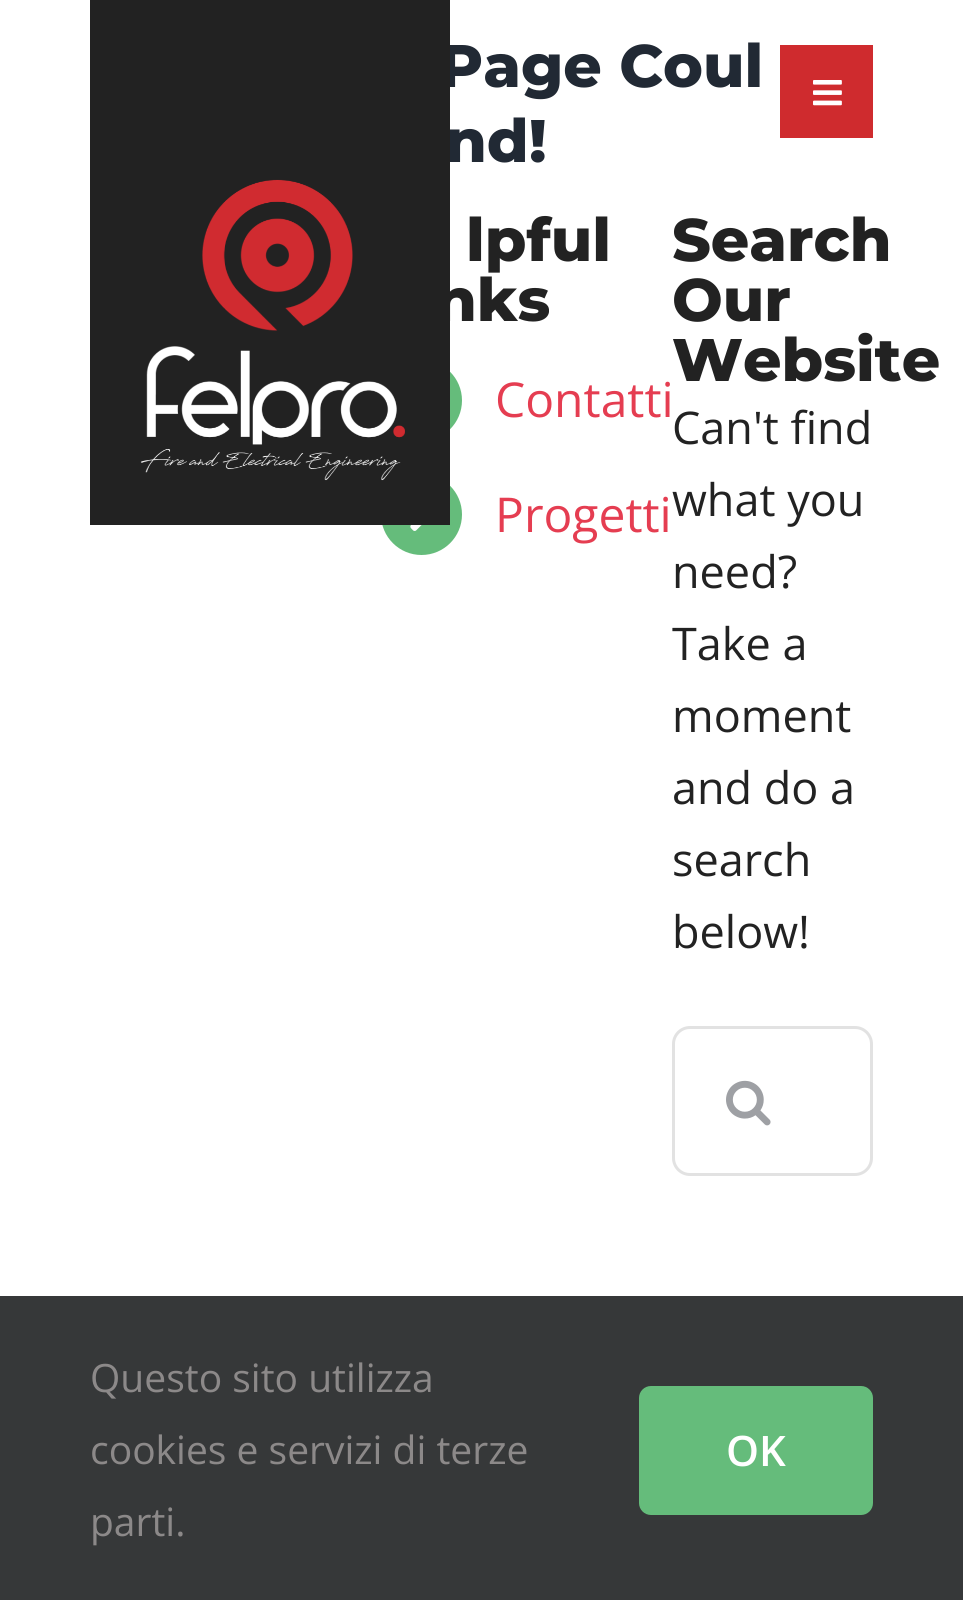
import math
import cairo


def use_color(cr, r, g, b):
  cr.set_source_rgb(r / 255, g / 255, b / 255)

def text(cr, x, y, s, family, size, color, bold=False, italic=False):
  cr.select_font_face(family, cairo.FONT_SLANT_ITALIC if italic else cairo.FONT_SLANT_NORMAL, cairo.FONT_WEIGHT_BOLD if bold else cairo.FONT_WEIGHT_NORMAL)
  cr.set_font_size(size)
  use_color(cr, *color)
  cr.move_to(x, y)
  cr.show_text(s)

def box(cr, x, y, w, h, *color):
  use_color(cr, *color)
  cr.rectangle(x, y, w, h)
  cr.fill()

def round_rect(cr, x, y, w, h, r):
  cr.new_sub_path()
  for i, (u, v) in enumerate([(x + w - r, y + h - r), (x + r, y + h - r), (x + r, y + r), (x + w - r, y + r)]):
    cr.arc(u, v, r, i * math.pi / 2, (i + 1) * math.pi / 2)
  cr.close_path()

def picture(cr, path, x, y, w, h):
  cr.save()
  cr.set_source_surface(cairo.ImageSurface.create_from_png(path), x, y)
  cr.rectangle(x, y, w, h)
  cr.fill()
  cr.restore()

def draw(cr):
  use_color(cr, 255, 255, 255)
  cr.paint()
  box(cr, 780, 45, 93, 93, 207, 43, 46)
  picture(cr, "img_02.png", 813, 80, 29, 26)
  use_color(cr, 101, 188, 123)
  cr.arc(421.5, 400.5, 40.5, 0, 2 * math.pi)
  cr.fill()
  cr.arc(421.5, 514.5, 40.5, 0, 2 * math.pi)
  cr.fill()
  picture(cr, "img_03.png", 410, 525, 12, 6)
  round_rect(cr, 673.5, 1027.5, 198, 147, 16.5)
  use_color(cr, 226, 226, 226)
  cr.set_line_width(3)
  cr.stroke()
  picture(cr, "img_04.png", 726, 1080, 45, 46)
  box(cr, 0, 1296, 963, 304, 54, 56, 57)
  use_color(cr, 101, 188, 123)
  round_rect(cr, 639, 1386, 234, 129, 12)
  cr.fill()
  text(cr, 439, 87, "Page Coul", "Montserrat ExtraBold", 60, (33, 41, 52))
  text(cr, 445, 162, "nd!", "Montserrat ExtraBold", 60, (33, 41, 52))
  box(cr, 90, 0, 360, 525, 34, 34, 34)
  picture(cr, "img_01.png", 140, 179, 265, 302)
  text(cr, 466, 261, "lpful", "Montserrat ExtraBold", 60, (34, 34, 34))
  text(cr, 435, 321, "nks", "Montserrat ExtraBold", 60, (34, 34, 34))
  text(cr, 495, 417, "Contatti", "Open Sans", 48, (229, 61, 81))
  text(cr, 495, 532, "Progetti", "Open Sans", 48, (229, 61, 81))
  text(cr, 672, 261, "Search", "Montserrat ExtraBold", 60, (34, 34, 34))
  text(cr, 672, 321, "Our", "Montserrat ExtraBold", 60, (34, 34, 34))
  text(cr, 672, 381, "Website", "Montserrat ExtraBold", 60, (34, 34, 34))
  text(cr, 672, 444, "Can't find", "Open Sans", 45, (34, 34, 34))
  text(cr, 672, 516, "what you", "Open Sans", 45, (34, 34, 34))
  text(cr, 672, 588, "need?", "Open Sans", 45, (34, 34, 34))
  text(cr, 672, 660, "Take a", "Open Sans", 45, (34, 34, 34))
  text(cr, 672, 732, "moment", "Open Sans", 45, (34, 34, 34))
  text(cr, 672, 804, "and do a", "Open Sans", 45, (34, 34, 34))
  text(cr, 672, 876, "search", "Open Sans", 45, (34, 34, 34))
  text(cr, 672, 948, "below!", "Open Sans", 45, (34, 34, 34))
  text(cr, 90, 1392, "Questo sito utilizza", "Open Sans", 39, (140, 137, 137))
  text(cr, 90, 1464, "cookies e servizi di terze", "Open Sans", 39, (140, 137, 137))
  text(cr, 90, 1536, "parti.", "Open Sans", 39, (140, 137, 137))
  text(cr, 726, 1466, "OK", "Open Sans SemiBold", 42, (255, 255, 255))


surface = cairo.ImageSurface(cairo.FORMAT_RGB24, 963, 1600)
cr = cairo.Context(surface)
options = cairo.FontOptions()
options.set_hint_metrics(cairo.HINT_METRICS_OFF)
options.set_hint_style(cairo.HINT_STYLE_NONE)
cr.set_font_options(options)
cr.set_miter_limit(4)
draw(cr)
surface.write_to_png("out.png")
